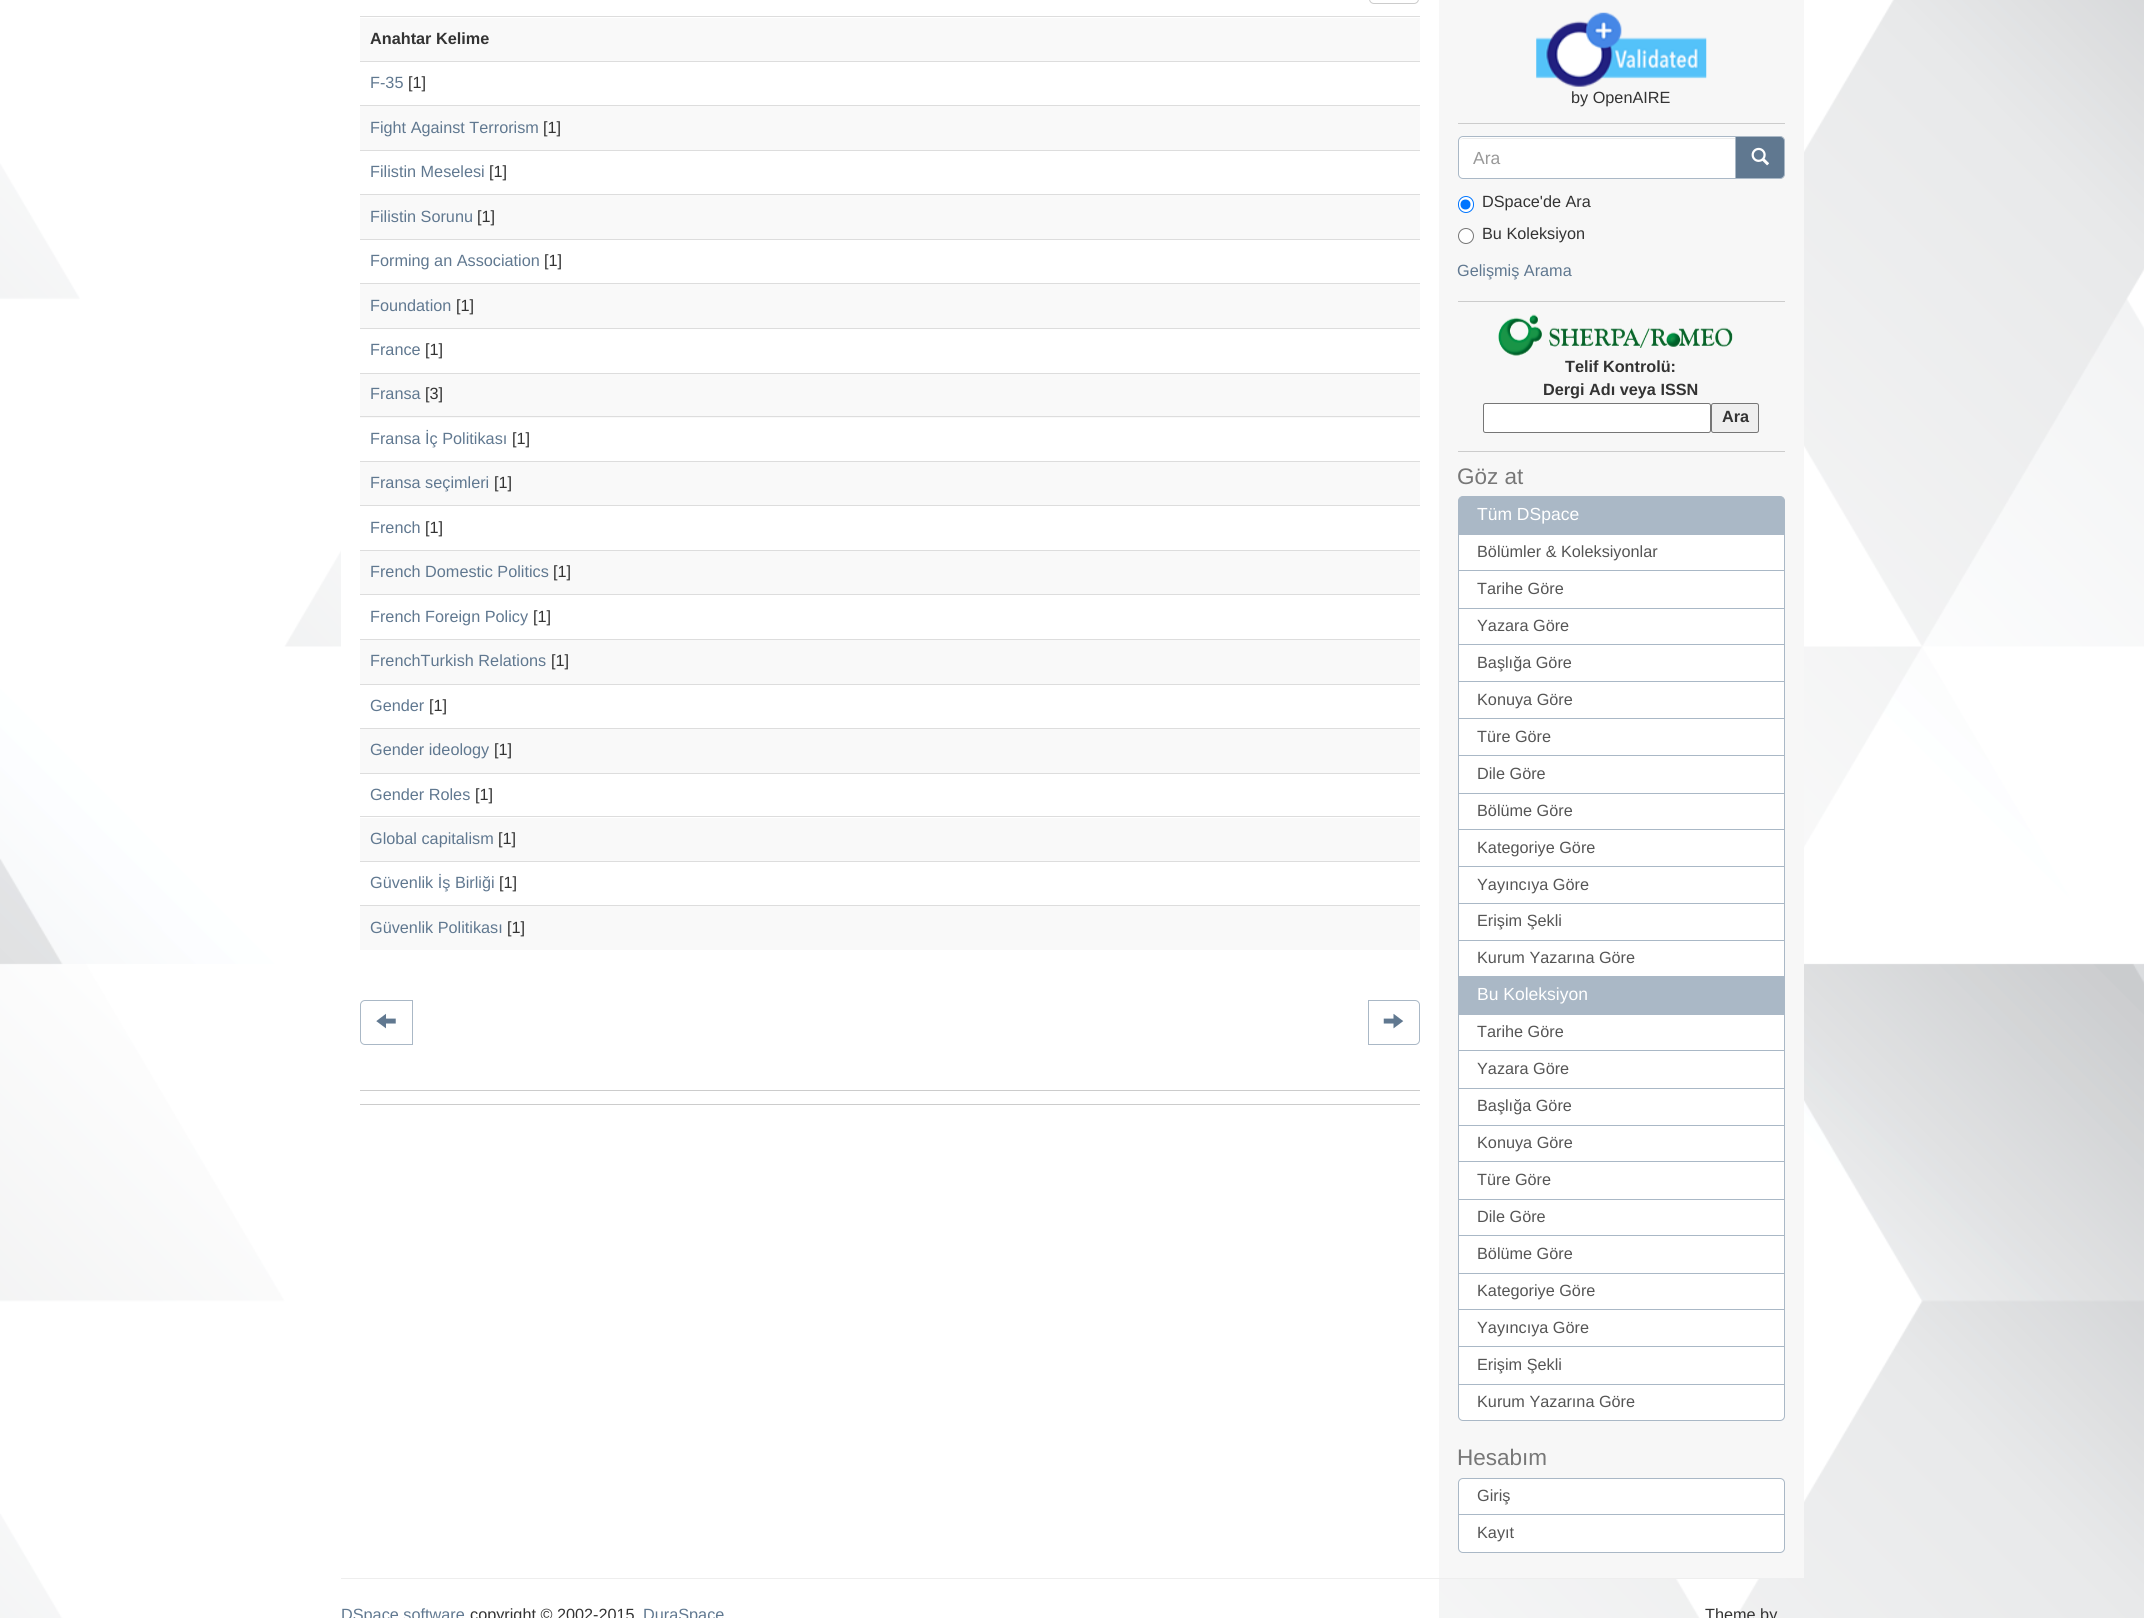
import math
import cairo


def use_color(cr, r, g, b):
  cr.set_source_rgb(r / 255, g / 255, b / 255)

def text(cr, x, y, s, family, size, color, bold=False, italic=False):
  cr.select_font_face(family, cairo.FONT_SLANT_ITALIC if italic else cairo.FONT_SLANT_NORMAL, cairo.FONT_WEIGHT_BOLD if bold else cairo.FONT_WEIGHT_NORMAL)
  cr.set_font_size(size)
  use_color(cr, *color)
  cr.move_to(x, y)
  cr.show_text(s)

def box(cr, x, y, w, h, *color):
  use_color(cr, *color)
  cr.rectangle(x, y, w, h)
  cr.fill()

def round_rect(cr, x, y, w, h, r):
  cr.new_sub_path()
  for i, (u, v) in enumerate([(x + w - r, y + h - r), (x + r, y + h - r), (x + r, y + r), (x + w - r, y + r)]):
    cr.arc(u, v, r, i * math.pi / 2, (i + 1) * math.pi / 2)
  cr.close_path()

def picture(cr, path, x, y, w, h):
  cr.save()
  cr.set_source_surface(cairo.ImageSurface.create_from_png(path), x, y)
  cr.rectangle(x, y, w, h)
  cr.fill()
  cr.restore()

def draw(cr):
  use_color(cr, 255, 255, 255)
  cr.paint()
  picture(cr, "img_01.png", 0, 0, 2144, 1618)
  box(cr, 1439, 0, 365, 1578, 247, 247, 247)
  box(cr, 341, 0, 1098, 1618, 255, 255, 255)
  round_rect(cr, 1369.5, -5.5, 49, 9, 4.5)
  use_color(cr, 204, 204, 204)
  cr.set_line_width(1)
  cr.stroke()
  box(cr, 360, 18, 1060, 43, 249, 249, 249)
  box(cr, 360, 16, 1060, 1, 221, 221, 221)
  box(cr, 360, 61, 1060, 1, 221, 221, 221)
  box(cr, 360, 106, 1060, 44, 249, 249, 249)
  box(cr, 360, 105, 1060, 1, 221, 221, 221)
  box(cr, 360, 150, 1060, 1, 221, 221, 221)
  box(cr, 360, 195, 1060, 44, 249, 249, 249)
  box(cr, 360, 194, 1060, 1, 221, 221, 221)
  box(cr, 360, 239, 1060, 1, 221, 221, 221)
  box(cr, 360, 284, 1060, 44, 249, 249, 249)
  box(cr, 360, 283, 1060, 1, 221, 221, 221)
  box(cr, 360, 328, 1060, 1, 221, 221, 221)
  box(cr, 360, 374, 1060, 44, 249, 249, 249)
  box(cr, 360, 373, 1060, 1, 221, 221, 221)
  box(cr, 360, 416, 1060, 1, 221, 221, 221)
  box(cr, 360, 462, 1060, 43, 249, 249, 249)
  box(cr, 360, 461, 1060, 1, 221, 221, 221)
  box(cr, 360, 505, 1060, 1, 221, 221, 221)
  box(cr, 360, 551, 1060, 43, 249, 249, 249)
  box(cr, 360, 550, 1060, 1, 221, 221, 221)
  box(cr, 360, 594, 1060, 1, 221, 221, 221)
  box(cr, 360, 640, 1060, 44, 249, 249, 249)
  box(cr, 360, 639, 1060, 1, 221, 221, 221)
  box(cr, 360, 684, 1060, 1, 221, 221, 221)
  box(cr, 360, 729, 1060, 44, 249, 249, 249)
  box(cr, 360, 728, 1060, 1, 221, 221, 221)
  box(cr, 360, 773, 1060, 1, 221, 221, 221)
  box(cr, 360, 818, 1060, 43, 249, 249, 249)
  box(cr, 360, 816, 1060, 1, 221, 221, 221)
  box(cr, 360, 861, 1060, 1, 221, 221, 221)
  box(cr, 360, 906, 1060, 44, 249, 249, 249)
  box(cr, 360, 905, 1060, 1, 221, 221, 221)
  cr.new_path()
  cr.move_to(365, 1000.5)
  cr.line_to(412.5, 1000.5)
  cr.line_to(412.5, 1044.5)
  cr.line_to(365, 1044.5)
  cr.curve_to(362.5, 1044.5, 360.5, 1042.5, 360.5, 1040)
  cr.line_to(360.5, 1005)
  cr.curve_to(360.5, 1002.5, 362.5, 1000.5, 365, 1000.5)
  cr.close_path()
  use_color(cr, 170, 184, 198)
  cr.stroke()
  picture(cr, "img_02.png", 376, 1013, 20, 16)
  cr.new_path()
  cr.move_to(1368.5, 1000.5)
  cr.line_to(1415, 1000.5)
  cr.curve_to(1417.5, 1000.5, 1419.5, 1002.5, 1419.5, 1005)
  cr.line_to(1419.5, 1040)
  cr.curve_to(1419.5, 1042.5, 1417.5, 1044.5, 1415, 1044.5)
  cr.line_to(1368.5, 1044.5)
  cr.close_path()
  cr.stroke()
  picture(cr, "img_03.png", 1383, 1013, 21, 16)
  box(cr, 360, 1090, 1060, 1, 204, 204, 204)
  box(cr, 360, 1104, 1060, 1, 204, 204, 204)
  picture(cr, "img_04.png", 1536, 12, 171, 75)
  box(cr, 1458, 123, 327, 1, 204, 204, 204)
  use_color(cr, 96, 120, 144)
  cr.new_path()
  cr.move_to(1735.5, 136.5)
  cr.line_to(1780, 136.5)
  cr.curve_to(1782.5, 136.5, 1784.5, 138.5, 1784.5, 141)
  cr.line_to(1784.5, 174)
  cr.curve_to(1784.5, 176.5, 1782.5, 178.5, 1780, 178.5)
  cr.line_to(1735.5, 178.5)
  cr.close_path()
  cr.fill_preserve()
  use_color(cr, 170, 184, 198)
  cr.stroke()
  use_color(cr, 255, 255, 255)
  cr.new_path()
  cr.move_to(1463, 136)
  cr.line_to(1736, 136)
  cr.line_to(1736, 179)
  cr.line_to(1463, 179)
  cr.curve_to(1460, 179, 1458, 177, 1458, 174)
  cr.line_to(1458, 141)
  cr.curve_to(1458, 138, 1460, 136, 1463, 136)
  cr.close_path()
  cr.fill()
  use_color(cr, 236, 236, 236)
  cr.new_path()
  cr.move_to(1462, 139)
  cr.line_to(1735, 139)
  cr.line_to(1735, 138)
  cr.line_to(1463, 138)
  cr.line_to(1461, 139)
  cr.line_to(1460, 140)
  cr.close_path()
  cr.fill()
  cr.new_path()
  cr.move_to(1463, 136.5)
  cr.line_to(1735.5, 136.5)
  cr.line_to(1735.5, 178.5)
  cr.line_to(1463, 178.5)
  cr.curve_to(1460.5, 178.5, 1458.5, 176.5, 1458.5, 174)
  cr.line_to(1458.5, 141)
  cr.curve_to(1458.5, 138.5, 1460.5, 136.5, 1463, 136.5)
  cr.close_path()
  use_color(cr, 170, 184, 198)
  cr.stroke()
  picture(cr, "img_05.png", 1751, 147, 18, 19)
  use_color(cr, 255, 255, 255)
  round_rect(cr, 1458.5, 196.5, 15, 16, 7.5)
  cr.fill_preserve()
  use_color(cr, 0, 117, 255)
  cr.stroke()
  cr.arc(1465.5, 204.5, 5, 0, 2 * math.pi)
  cr.fill()
  use_color(cr, 255, 255, 255)
  cr.arc(1466, 236, 7.5, 0, 2 * math.pi)
  cr.fill_preserve()
  use_color(cr, 118, 118, 118)
  cr.stroke()
  box(cr, 1458, 301, 327, 1, 204, 204, 204)
  picture(cr, "img_06.png", 1498, 314, 235, 42)
  use_color(cr, 255, 255, 255)
  round_rect(cr, 1483.5, 403.5, 227, 29, 2)
  cr.fill_preserve()
  use_color(cr, 118, 118, 118)
  cr.stroke()
  use_color(cr, 239, 239, 239)
  round_rect(cr, 1711.5, 403.5, 47, 29, 2)
  cr.fill_preserve()
  use_color(cr, 118, 118, 118)
  cr.stroke()
  box(cr, 1458, 451, 327, 1, 204, 204, 204)
  use_color(cr, 255, 255, 255)
  cr.rectangle(1458.5, 534.5, 326, 36)
  cr.fill_preserve()
  use_color(cr, 170, 184, 198)
  cr.stroke()
  cr.new_path()
  cr.move_to(1463, 496.5)
  cr.line_to(1780, 496.5)
  cr.curve_to(1782.5, 496.5, 1784.5, 498.5, 1784.5, 501)
  cr.line_to(1784.5, 534.5)
  cr.line_to(1458.5, 534.5)
  cr.line_to(1458.5, 501)
  cr.curve_to(1458.5, 498.5, 1460.5, 496.5, 1463, 496.5)
  cr.close_path()
  cr.fill_preserve()
  cr.stroke()
  use_color(cr, 255, 255, 255)
  cr.rectangle(1458.5, 570.5, 326, 38)
  cr.fill_preserve()
  use_color(cr, 170, 184, 198)
  cr.stroke()
  use_color(cr, 255, 255, 255)
  cr.rectangle(1458.5, 608.5, 326, 36)
  cr.fill_preserve()
  use_color(cr, 170, 184, 198)
  cr.stroke()
  box(cr, 1459, 645, 325, 36, 255, 255, 255)
  cr.rectangle(1458.5, 644.5, 326, 38)
  use_color(cr, 170, 184, 198)
  cr.stroke()
  use_color(cr, 255, 255, 255)
  cr.rectangle(1458.5, 681.5, 326, 37)
  cr.fill_preserve()
  use_color(cr, 170, 184, 198)
  cr.stroke()
  use_color(cr, 255, 255, 255)
  cr.rectangle(1458.5, 718.5, 326, 37)
  cr.fill_preserve()
  use_color(cr, 170, 184, 198)
  cr.stroke()
  use_color(cr, 255, 255, 255)
  cr.rectangle(1458.5, 755.5, 326, 38)
  cr.fill_preserve()
  use_color(cr, 170, 184, 198)
  cr.stroke()
  use_color(cr, 255, 255, 255)
  cr.rectangle(1458.5, 793.5, 326, 36)
  cr.fill_preserve()
  use_color(cr, 170, 184, 198)
  cr.stroke()
  box(cr, 1459, 830, 325, 36, 255, 255, 255)
  cr.rectangle(1458.5, 829.5, 326, 38)
  use_color(cr, 170, 184, 198)
  cr.stroke()
  use_color(cr, 255, 255, 255)
  cr.rectangle(1458.5, 866.5, 326, 37)
  cr.fill_preserve()
  use_color(cr, 170, 184, 198)
  cr.stroke()
  use_color(cr, 255, 255, 255)
  cr.rectangle(1458.5, 903.5, 326, 37)
  cr.fill_preserve()
  use_color(cr, 170, 184, 198)
  cr.stroke()
  box(cr, 1459, 941, 325, 35, 255, 255, 255)
  cr.rectangle(1458.5, 940.5, 326, 37)
  use_color(cr, 170, 184, 198)
  cr.stroke()
  box(cr, 1458, 976, 327, 38, 170, 184, 198)
  use_color(cr, 255, 255, 255)
  cr.rectangle(1458.5, 1014.5, 326, 36)
  cr.fill_preserve()
  use_color(cr, 170, 184, 198)
  cr.stroke()
  use_color(cr, 255, 255, 255)
  cr.rectangle(1458.5, 1050.5, 326, 38)
  cr.fill_preserve()
  use_color(cr, 170, 184, 198)
  cr.stroke()
  use_color(cr, 255, 255, 255)
  cr.rectangle(1458.5, 1088.5, 326, 37)
  cr.fill_preserve()
  use_color(cr, 170, 184, 198)
  cr.stroke()
  box(cr, 1459, 1126, 325, 35, 255, 255, 255)
  cr.rectangle(1458.5, 1125.5, 326, 37)
  use_color(cr, 170, 184, 198)
  cr.stroke()
  use_color(cr, 255, 255, 255)
  cr.rectangle(1458.5, 1161.5, 326, 38)
  cr.fill_preserve()
  use_color(cr, 170, 184, 198)
  cr.stroke()
  use_color(cr, 255, 255, 255)
  cr.rectangle(1458.5, 1199.5, 326, 36)
  cr.fill_preserve()
  use_color(cr, 170, 184, 198)
  cr.stroke()
  use_color(cr, 255, 255, 255)
  cr.rectangle(1458.5, 1235.5, 326, 38)
  cr.fill_preserve()
  use_color(cr, 170, 184, 198)
  cr.stroke()
  use_color(cr, 255, 255, 255)
  cr.rectangle(1458.5, 1273.5, 326, 36)
  cr.fill_preserve()
  use_color(cr, 170, 184, 198)
  cr.stroke()
  box(cr, 1459, 1310, 325, 36, 255, 255, 255)
  cr.rectangle(1458.5, 1309.5, 326, 38)
  use_color(cr, 170, 184, 198)
  cr.stroke()
  use_color(cr, 255, 255, 255)
  cr.rectangle(1458.5, 1346.5, 326, 38)
  cr.fill_preserve()
  use_color(cr, 170, 184, 198)
  cr.stroke()
  use_color(cr, 255, 255, 255)
  cr.new_path()
  cr.move_to(1458.5, 1384.5)
  cr.line_to(1784.5, 1384.5)
  cr.line_to(1784.5, 1416)
  cr.curve_to(1784.5, 1418.5, 1782.5, 1420.5, 1780, 1420.5)
  cr.line_to(1463, 1420.5)
  cr.curve_to(1460.5, 1420.5, 1458.5, 1418.5, 1458.5, 1416)
  cr.close_path()
  cr.fill_preserve()
  use_color(cr, 170, 184, 198)
  cr.stroke()
  use_color(cr, 255, 255, 255)
  cr.new_path()
  cr.move_to(1463, 1478.5)
  cr.line_to(1780, 1478.5)
  cr.curve_to(1782.5, 1478.5, 1784.5, 1480.5, 1784.5, 1483)
  cr.line_to(1784.5, 1514.5)
  cr.line_to(1458.5, 1514.5)
  cr.line_to(1458.5, 1483)
  cr.curve_to(1458.5, 1480.5, 1460.5, 1478.5, 1463, 1478.5)
  cr.close_path()
  cr.fill_preserve()
  use_color(cr, 170, 184, 198)
  cr.stroke()
  use_color(cr, 255, 255, 255)
  cr.new_path()
  cr.move_to(1458.5, 1514.5)
  cr.line_to(1784.5, 1514.5)
  cr.line_to(1784.5, 1548)
  cr.curve_to(1784.5, 1550.5, 1782.5, 1552.5, 1780, 1552.5)
  cr.line_to(1463, 1552.5)
  cr.curve_to(1460.5, 1552.5, 1458.5, 1550.5, 1458.5, 1548)
  cr.close_path()
  cr.fill_preserve()
  use_color(cr, 170, 184, 198)
  cr.stroke()
  box(cr, 341, 1578, 1419, 1, 238, 238, 238)
  text(cr, 370, 44, "Anahtar Kelime", "Liberation Sans", 16.25, (51, 51, 51), bold=True)
  text(cr, 370, 88, "F-35", "Liberation Sans", 16.25, (96, 120, 144))
  text(cr, 408, 88, "[1]", "Liberation Sans", 16.25, (51, 51, 51))
  text(cr, 370, 133, "Fight Against Terrorism", "Liberation Sans", 16.25, (96, 120, 144))
  text(cr, 543, 133, "[1]", "Liberation Sans", 16.25, (51, 51, 51))
  text(cr, 370, 177, "Filistin Meselesi", "Liberation Sans", 16.25, (96, 120, 144))
  text(cr, 489, 177, "[1]", "Liberation Sans", 16.25, (51, 51, 51))
  text(cr, 370, 222, "Filistin Sorunu", "Liberation Sans", 16.25, (96, 120, 144))
  text(cr, 477, 222, "[1]", "Liberation Sans", 16.25, (51, 51, 51))
  text(cr, 370, 266, "Forming an Association", "Liberation Sans", 16.25, (96, 120, 144))
  text(cr, 544, 266, "[1]", "Liberation Sans", 16.25, (51, 51, 51))
  text(cr, 370, 311, "Foundation", "Liberation Sans", 16.25, (96, 120, 144))
  text(cr, 456, 311, "[1]", "Liberation Sans", 16.25, (51, 51, 51))
  text(cr, 370, 355, "France", "Liberation Sans", 16.25, (96, 120, 144))
  text(cr, 425, 355, "[1]", "Liberation Sans", 16.25, (51, 51, 51))
  text(cr, 370, 399, "Fransa", "Liberation Sans", 16.25, (96, 120, 144))
  text(cr, 425, 399, "[3]", "Liberation Sans", 16.25, (51, 51, 51))
  text(cr, 370, 444, "Fransa İç Politikası", "Liberation Sans", 16.25, (96, 120, 144))
  text(cr, 512, 444, "[1]", "Liberation Sans", 16.25, (51, 51, 51))
  text(cr, 370, 488, "Fransa seçimleri", "Liberation Sans", 16.25, (96, 120, 144))
  text(cr, 494, 488, "[1]", "Liberation Sans", 16.25, (51, 51, 51))
  text(cr, 370, 533, "French", "Liberation Sans", 16.25, (96, 120, 144))
  text(cr, 425, 533, "[1]", "Liberation Sans", 16.25, (51, 51, 51))
  text(cr, 370, 577, "French Domestic Politics", "Liberation Sans", 16.25, (96, 120, 144))
  text(cr, 553, 577, "[1]", "Liberation Sans", 16.25, (51, 51, 51))
  text(cr, 370, 622, "French Foreign Policy", "Liberation Sans", 16.25, (96, 120, 144))
  text(cr, 533, 622, "[1]", "Liberation Sans", 16.25, (51, 51, 51))
  text(cr, 370, 666, "FrenchTurkish Relations", "Liberation Sans", 16.25, (96, 120, 144))
  text(cr, 551, 666, "[1]", "Liberation Sans", 16.25, (51, 51, 51))
  text(cr, 370, 711, "Gender", "Liberation Sans", 16.25, (96, 120, 144))
  text(cr, 429, 711, "[1]", "Liberation Sans", 16.25, (51, 51, 51))
  text(cr, 370, 755, "Gender ideology", "Liberation Sans", 16.25, (96, 120, 144))
  text(cr, 494, 755, "[1]", "Liberation Sans", 16.25, (51, 51, 51))
  text(cr, 370, 800, "Gender Roles", "Liberation Sans", 16.25, (96, 120, 144))
  text(cr, 475, 800, "[1]", "Liberation Sans", 16.25, (51, 51, 51))
  text(cr, 370, 844, "Global capitalism", "Liberation Sans", 16.25, (96, 120, 144))
  text(cr, 498, 844, "[1]", "Liberation Sans", 16.25, (51, 51, 51))
  text(cr, 370, 888, "Güvenlik İş Birliği", "Liberation Sans", 16.25, (96, 120, 144))
  text(cr, 499, 888, "[1]", "Liberation Sans", 16.25, (51, 51, 51))
  text(cr, 370, 933, "Güvenlik Politikası", "Liberation Sans", 16.25, (96, 120, 144))
  text(cr, 507, 933, "[1]", "Liberation Sans", 16.25, (51, 51, 51))
  text(cr, 1571, 103, "by OpenAIRE", "Liberation Sans", 16.25, (51, 51, 51))
  text(cr, 1473, 164, "Ara", "Liberation Sans", 17.5, (153, 153, 153))
  text(cr, 1482, 207, "DSpace'de Ara", "Liberation Sans", 16.25, (51, 51, 51))
  text(cr, 1482, 239, "Bu Koleksiyon", "Liberation Sans", 16.25, (51, 51, 51))
  text(cr, 1457, 276, "Gelişmiş Arama", "Liberation Sans", 16.25, (96, 120, 144))
  text(cr, 1565, 372, "Telif Kontrolü:", "Liberation Sans", 16.25, (51, 51, 51), bold=True)
  text(cr, 1543, 395, "Dergi Adı veya ISSN", "Liberation Sans", 16.25, (51, 51, 51), bold=True)
  text(cr, 1722, 422, "Ara", "Liberation Sans", 16.25, (51, 51, 51), bold=True)
  text(cr, 1457, 484, "Göz at", "Liberation Sans", 22.5, (119, 119, 119))
  text(cr, 1477, 520, "Tüm DSpace", "Liberation Sans", 17.5, (255, 255, 255))
  text(cr, 1477, 557, "Bölümler & Koleksiyonlar", "Liberation Sans", 16.25, (85, 85, 85))
  text(cr, 1477, 594, "Tarihe Göre", "Liberation Sans", 16.25, (85, 85, 85))
  text(cr, 1477, 631, "Yazara Göre", "Liberation Sans", 16.25, (85, 85, 85))
  text(cr, 1477, 668, "Başlığa Göre", "Liberation Sans", 16.25, (85, 85, 85))
  text(cr, 1477, 705, "Konuya Göre", "Liberation Sans", 16.25, (85, 85, 85))
  text(cr, 1477, 742, "Türe Göre", "Liberation Sans", 16.25, (85, 85, 85))
  text(cr, 1477, 779, "Dile Göre", "Liberation Sans", 16.25, (85, 85, 85))
  text(cr, 1477, 816, "Bölüme Göre", "Liberation Sans", 16.25, (85, 85, 85))
  text(cr, 1477, 853, "Kategoriye Göre", "Liberation Sans", 16.25, (85, 85, 85))
  text(cr, 1477, 890, "Yayıncıya Göre", "Liberation Sans", 16.25, (85, 85, 85))
  text(cr, 1477, 926, "Erişim Şekli", "Liberation Sans", 16.25, (85, 85, 85))
  text(cr, 1477, 963, "Kurum Yazarına Göre", "Liberation Sans", 16.25, (85, 85, 85))
  text(cr, 1477, 1000, "Bu Koleksiyon", "Liberation Sans", 17.5, (255, 255, 255))
  text(cr, 1477, 1037, "Tarihe Göre", "Liberation Sans", 16.25, (85, 85, 85))
  text(cr, 1477, 1074, "Yazara Göre", "Liberation Sans", 16.25, (85, 85, 85))
  text(cr, 1477, 1111, "Başlığa Göre", "Liberation Sans", 16.25, (85, 85, 85))
  text(cr, 1477, 1148, "Konuya Göre", "Liberation Sans", 16.25, (85, 85, 85))
  text(cr, 1477, 1185, "Türe Göre", "Liberation Sans", 16.25, (85, 85, 85))
  text(cr, 1477, 1222, "Dile Göre", "Liberation Sans", 16.25, (85, 85, 85))
  text(cr, 1477, 1259, "Bölüme Göre", "Liberation Sans", 16.25, (85, 85, 85))
  text(cr, 1477, 1296, "Kategoriye Göre", "Liberation Sans", 16.25, (85, 85, 85))
  text(cr, 1477, 1333, "Yayıncıya Göre", "Liberation Sans", 16.25, (85, 85, 85))
  text(cr, 1477, 1370, "Erişim Şekli", "Liberation Sans", 16.25, (85, 85, 85))
  text(cr, 1477, 1407, "Kurum Yazarına Göre", "Liberation Sans", 16.25, (85, 85, 85))
  text(cr, 1457, 1465, "Hesabım", "Liberation Sans", 22.5, (119, 119, 119))
  text(cr, 1477, 1501, "Giriş", "Liberation Sans", 16.25, (85, 85, 85))
  text(cr, 1477, 1538, "Kayıt", "Liberation Sans", 16.25, (85, 85, 85))
  text(cr, 341, 1620, "DSpace software", "Liberation Sans", 16.25, (96, 120, 144))
  text(cr, 470, 1620, "copyright © 2002-2015", "Liberation Sans", 16.25, (51, 51, 51))
  text(cr, 643, 1620, "DuraSpace", "Liberation Sans", 16.25, (96, 120, 144))
  text(cr, 1705, 1620, "Theme by", "Liberation Sans", 16.25, (51, 51, 51))


surface = cairo.ImageSurface(cairo.FORMAT_RGB24, 2144, 1618)
cr = cairo.Context(surface)
options = cairo.FontOptions()
options.set_hint_metrics(cairo.HINT_METRICS_OFF)
options.set_hint_style(cairo.HINT_STYLE_NONE)
cr.set_font_options(options)
cr.set_miter_limit(4)
draw(cr)
surface.write_to_png("out.png")
